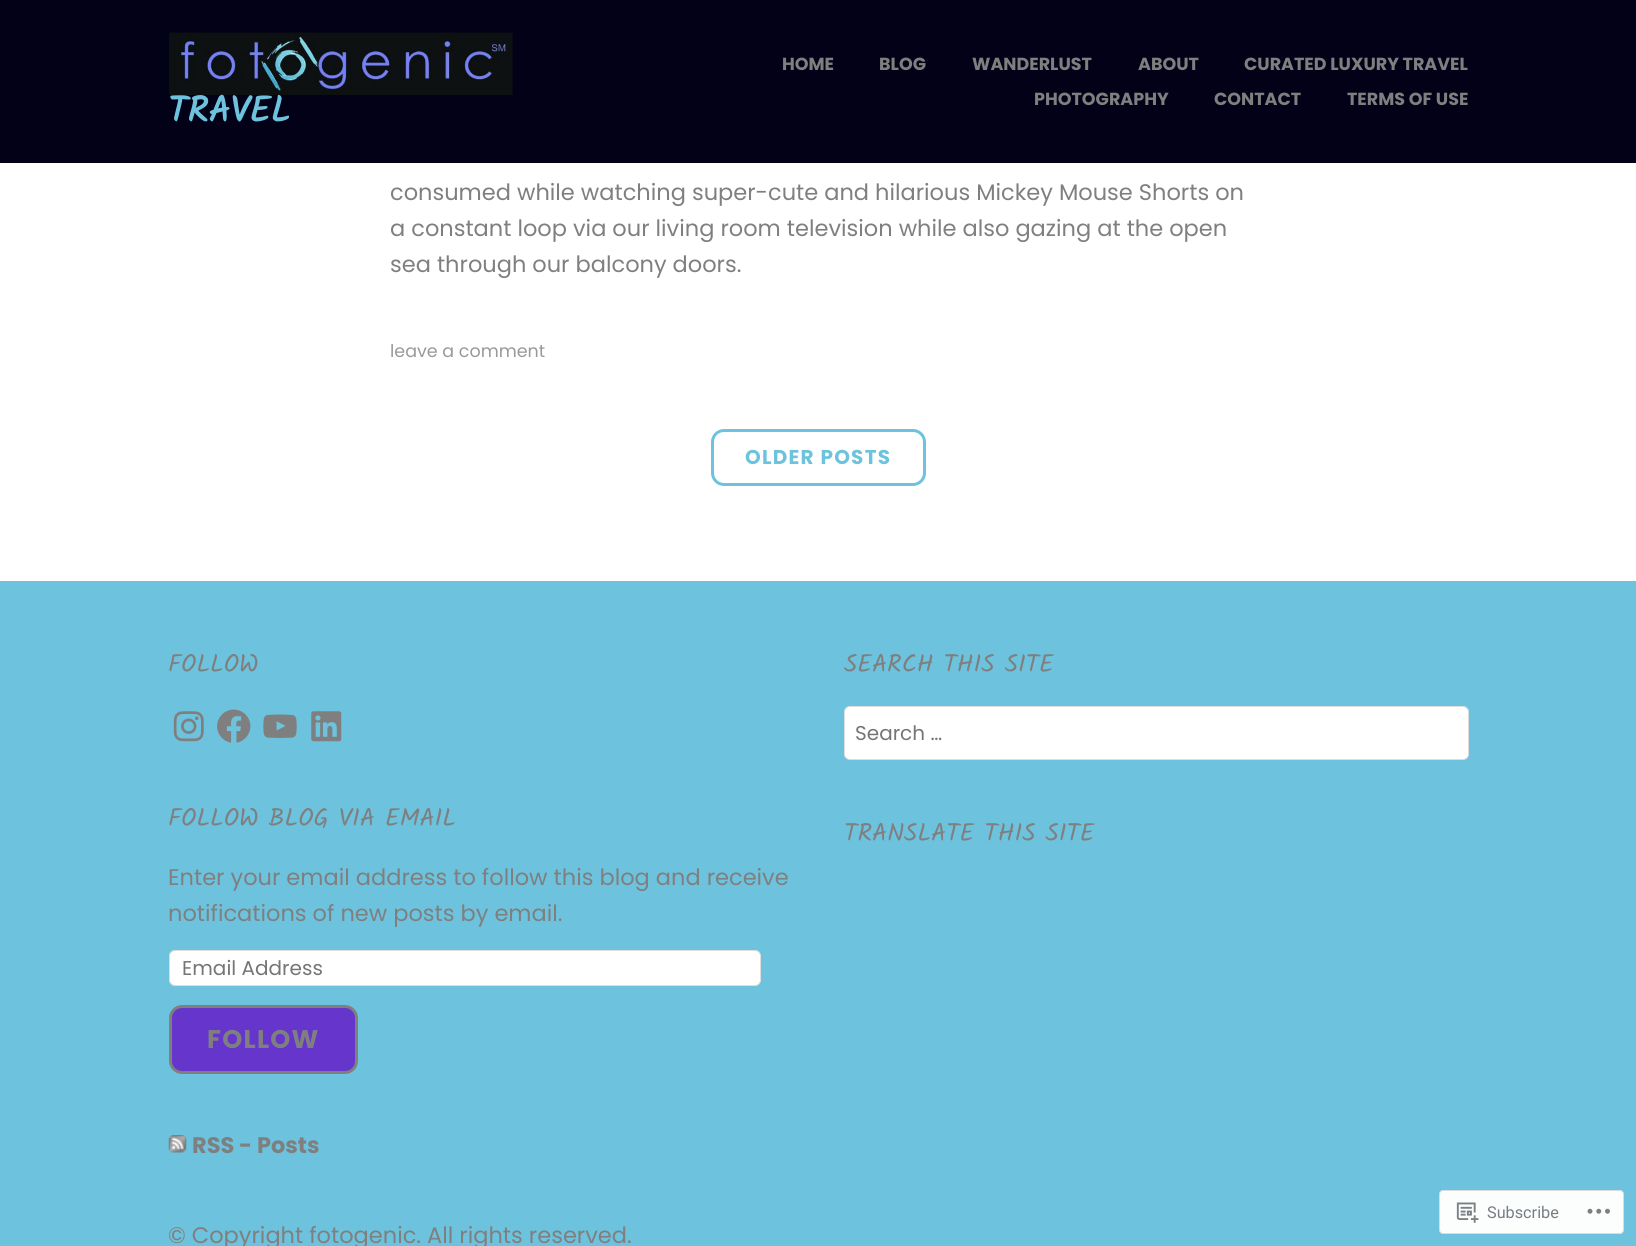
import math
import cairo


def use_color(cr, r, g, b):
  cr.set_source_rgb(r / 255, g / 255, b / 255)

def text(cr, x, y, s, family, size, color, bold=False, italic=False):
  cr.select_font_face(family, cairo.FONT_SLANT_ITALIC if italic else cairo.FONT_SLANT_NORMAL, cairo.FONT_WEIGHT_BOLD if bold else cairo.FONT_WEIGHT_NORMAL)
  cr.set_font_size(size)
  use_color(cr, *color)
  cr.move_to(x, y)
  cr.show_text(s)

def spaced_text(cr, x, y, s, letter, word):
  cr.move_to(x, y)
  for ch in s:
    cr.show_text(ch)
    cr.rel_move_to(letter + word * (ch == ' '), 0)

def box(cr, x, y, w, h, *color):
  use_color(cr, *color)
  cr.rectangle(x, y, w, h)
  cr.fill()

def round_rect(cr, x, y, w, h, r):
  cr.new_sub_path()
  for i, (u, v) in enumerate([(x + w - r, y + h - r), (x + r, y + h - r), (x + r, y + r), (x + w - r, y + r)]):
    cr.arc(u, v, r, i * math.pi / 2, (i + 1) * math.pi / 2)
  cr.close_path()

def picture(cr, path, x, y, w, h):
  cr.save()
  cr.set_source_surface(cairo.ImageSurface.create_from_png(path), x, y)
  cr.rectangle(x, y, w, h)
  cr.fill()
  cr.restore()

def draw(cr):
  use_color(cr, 255, 255, 255)
  cr.paint()
  box(cr, 0, 0, 1636, 163, 3, 1, 24)
  picture(cr, "img_01.png", 169, 32, 344, 63)
  round_rect(cr, 712.5, 430.5, 212, 54, 11.5)
  use_color(cr, 109, 195, 221)
  cr.set_line_width(3)
  cr.stroke()
  box(cr, 0, 581, 1636, 665, 109, 195, 221)
  picture(cr, "img_02.png", 173, 711, 31, 31)
  picture(cr, "img_03.png", 217, 709, 34, 34)
  picture(cr, "img_04.png", 263, 714, 34, 24)
  picture(cr, "img_05.png", 311, 711, 31, 31)
  use_color(cr, 255, 255, 255)
  round_rect(cr, 169.5, 950.5, 591, 35, 5.5)
  cr.fill_preserve()
  use_color(cr, 221, 221, 221)
  cr.set_line_width(1)
  cr.stroke()
  use_color(cr, 102, 54, 204)
  round_rect(cr, 170.5, 1006.5, 186, 66, 11.5)
  cr.fill_preserve()
  use_color(cr, 127, 127, 127)
  cr.set_line_width(3)
  cr.stroke()
  picture(cr, "img_06.png", 168, 1135, 19, 18)
  use_color(cr, 255, 255, 255)
  round_rect(cr, 844.5, 706.5, 624, 53, 5.5)
  cr.fill_preserve()
  use_color(cr, 221, 221, 221)
  cr.set_line_width(1)
  cr.stroke()
  use_color(cr, 252, 254, 254)
  round_rect(cr, 1439.5, 1190.5, 184, 43, 3.5)
  cr.fill_preserve()
  use_color(cr, 218, 220, 222)
  cr.stroke()
  picture(cr, "img_07.png", 1456, 1202, 23, 21)
  picture(cr, "img_08.png", 1587, 1208, 23, 6)
  text(cr, 168, 122, "TRAVEL", "Kalam", 36, (109, 195, 221), bold=True)
  text(cr, 782, 70, "HOME", "Poppins", 17.5, (127, 127, 127), bold=True)
  text(cr, 879, 70, "BLOG", "Poppins", 17.5, (127, 127, 127), bold=True)
  text(cr, 972, 70, "WANDERLUST", "Poppins", 17.5, (127, 127, 127), bold=True)
  text(cr, 1138, 70, "ABOUT", "Poppins", 17.5, (127, 127, 127), bold=True)
  text(cr, 1244, 70, "CURATED LUXURY TRAVEL", "Poppins", 17.5, (127, 127, 127), bold=True)
  text(cr, 1034, 105, "PHOTOGRAPHY", "Poppins", 17.5, (127, 127, 127), bold=True)
  text(cr, 1214, 105, "CONTACT", "Poppins", 17.5, (127, 127, 127), bold=True)
  text(cr, 1347, 105, "TERMS OF USE", "Poppins", 17.5, (127, 127, 127), bold=True)
  text(cr, 390, 200, "consumed while watching super-cute and hilarious Mickey Mouse Shorts on", "Poppins", 22.5, (127, 127, 127))
  text(cr, 390, 236, "a constant loop via our living room television while also gazing at the open", "Poppins", 22.5, (127, 127, 127))
  text(cr, 390, 272, "sea through our balcony doors.", "Poppins", 22.5, (127, 127, 127))
  text(cr, 390, 357, "leave a comment", "Poppins", 17.5, (153, 153, 153))
  cr.select_font_face("Poppins", cairo.FONT_SLANT_NORMAL, cairo.FONT_WEIGHT_BOLD)
  cr.set_font_size(20)
  use_color(cr, 109, 195, 221)
  spaced_text(cr, 745, 464, "OLDER POSTS", 1.25, 0)
  text(cr, 168, 672, "FOLLOW", "Kalam", 25, (127, 127, 127))
  text(cr, 168, 826, "FOLLOW BLOG VIA EMAIL", "Kalam", 25, (127, 127, 127))
  text(cr, 168, 885, "Enter your email address to follow this blog and receive", "Poppins", 22.5, (127, 127, 127))
  text(cr, 168, 921, "notifications of new posts by email.", "Poppins", 22.5, (127, 127, 127))
  text(cr, 182, 975, "Email Address", "Poppins", 20, (117, 117, 117))
  cr.select_font_face("Poppins", cairo.FONT_SLANT_NORMAL, cairo.FONT_WEIGHT_BOLD)
  cr.set_font_size(25.5)
  use_color(cr, 127, 127, 127)
  spaced_text(cr, 207, 1048, "FOLLOW", 1.25, 0)
  text(cr, 192, 1153, "RSS - Posts", "Poppins", 22.5, (127, 127, 127), bold=True)
  text(cr, 168, 1243, "© Copyright fotogenic. All rights reserved.", "Poppins", 22.5, (127, 127, 127))
  text(cr, 844, 672, "SEARCH THIS SITE", "Kalam", 25, (127, 127, 127))
  text(cr, 855, 740, "Search …", "Poppins", 20, (117, 117, 117))
  text(cr, 844, 841, "TRANSLATE THIS SITE", "Kalam", 25, (127, 127, 127))
  text(cr, 1487, 1218, "Subscribe", "Roboto", 16.25, (120, 125, 132))


surface = cairo.ImageSurface(cairo.FORMAT_RGB24, 1636, 1246)
cr = cairo.Context(surface)
options = cairo.FontOptions()
options.set_hint_metrics(cairo.HINT_METRICS_OFF)
options.set_hint_style(cairo.HINT_STYLE_NONE)
cr.set_font_options(options)
cr.set_miter_limit(4)
draw(cr)
surface.write_to_png("out.png")
